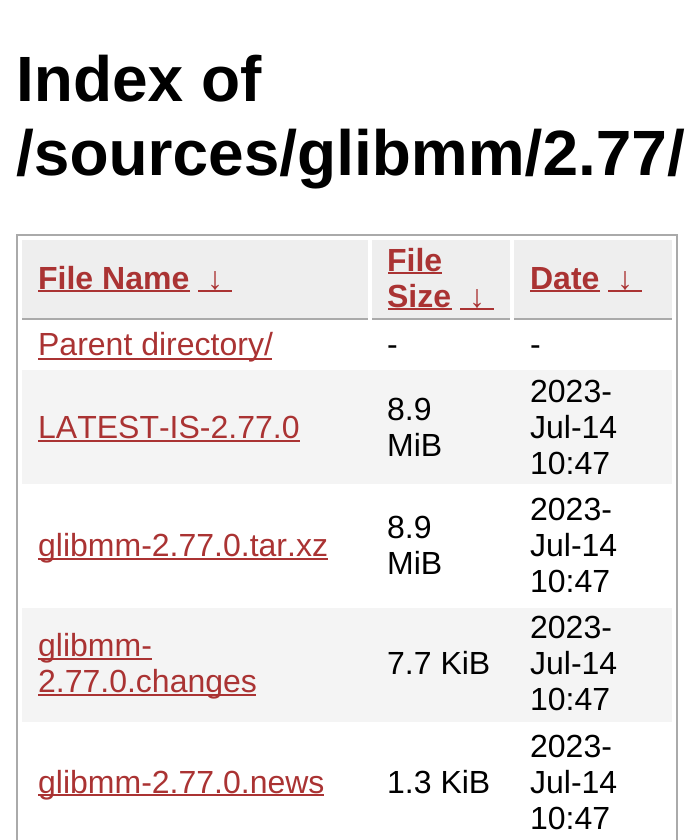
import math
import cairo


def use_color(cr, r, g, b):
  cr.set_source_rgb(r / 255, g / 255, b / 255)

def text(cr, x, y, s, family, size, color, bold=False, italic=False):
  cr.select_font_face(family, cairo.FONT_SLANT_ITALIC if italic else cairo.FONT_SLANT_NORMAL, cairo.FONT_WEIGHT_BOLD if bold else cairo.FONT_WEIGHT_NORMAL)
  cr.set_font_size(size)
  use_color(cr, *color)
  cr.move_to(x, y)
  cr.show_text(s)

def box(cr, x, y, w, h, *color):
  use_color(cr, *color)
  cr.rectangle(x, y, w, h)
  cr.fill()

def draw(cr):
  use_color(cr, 255, 255, 255)
  cr.paint()
  cr.rectangle(17, 235, 660, 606)
  use_color(cr, 170, 170, 170)
  cr.stroke()
  box(cr, 22, 240, 346, 78, 238, 238, 238)
  box(cr, 22, 318, 346, 2, 170, 170, 170)
  box(cr, 38, 290, 152, 2, 170, 51, 51)
  box(cr, 198, 290, 34, 2, 170, 51, 51)
  box(cr, 372, 240, 138, 78, 238, 238, 238)
  box(cr, 372, 318, 138, 2, 170, 170, 170)
  box(cr, 388, 272, 54, 2, 170, 51, 51)
  box(cr, 388, 308, 64, 2, 170, 51, 51)
  box(cr, 460, 308, 34, 2, 170, 51, 51)
  box(cr, 514, 240, 158, 78, 238, 238, 238)
  box(cr, 514, 318, 158, 2, 170, 170, 170)
  box(cr, 530, 290, 70, 2, 170, 51, 51)
  box(cr, 608, 290, 34, 2, 170, 51, 51)
  box(cr, 38, 358, 234, 2, 170, 51, 51)
  box(cr, 22, 370, 650, 114, 244, 244, 244)
  box(cr, 38, 440, 262, 2, 170, 51, 51)
  box(cr, 38, 558, 290, 2, 170, 51, 51)
  box(cr, 22, 608, 650, 114, 244, 244, 244)
  box(cr, 38, 658, 114, 2, 170, 51, 51)
  box(cr, 38, 694, 218, 2, 170, 51, 51)
  box(cr, 38, 794, 286, 2, 170, 51, 51)
  text(cr, 16, 101, "Index of", "Liberation Sans", 64, (0, 0, 0), bold=True)
  text(cr, 16, 175, "/sources/glibmm/2.77/", "Liberation Sans", 64, (0, 0, 0), bold=True)
  text(cr, 38, 289, "File Name", "Liberation Sans", 32, (170, 51, 51), bold=True)
  text(cr, 207, 289, "↓", "Liberation Sans", 32, (170, 51, 51), bold=True)
  text(cr, 387, 271, "File", "Liberation Sans", 32, (170, 51, 51), bold=True)
  text(cr, 387, 307, "Size", "Liberation Sans", 32, (170, 51, 51), bold=True)
  text(cr, 469, 307, "↓", "Liberation Sans", 32, (170, 51, 51), bold=True)
  text(cr, 530, 289, "Date", "Liberation Sans", 32, (170, 51, 51), bold=True)
  text(cr, 617, 289, "↓", "Liberation Sans", 32, (170, 51, 51), bold=True)
  text(cr, 38, 355, "Parent directory/", "Liberation Sans", 32, (170, 51, 51))
  text(cr, 387, 355, "-", "Liberation Sans", 32, (0, 0, 0))
  text(cr, 530, 355, "-", "Liberation Sans", 32, (0, 0, 0))
  text(cr, 38, 438, "LATEST-IS-2.77.0", "Liberation Sans", 32, (170, 51, 51))
  text(cr, 387, 420, "8.9", "Liberation Sans", 32, (0, 0, 0))
  text(cr, 387, 456, "MiB", "Liberation Sans", 32, (0, 0, 0))
  text(cr, 530, 402, "2023-", "Liberation Sans", 32, (0, 0, 0))
  text(cr, 530, 438, "Jul-14", "Liberation Sans", 32, (0, 0, 0))
  text(cr, 530, 474, "10:47", "Liberation Sans", 32, (0, 0, 0))
  text(cr, 38, 556, "glibmm-2.77.0.tar.xz", "Liberation Sans", 32, (170, 51, 51))
  text(cr, 387, 538, "8.9", "Liberation Sans", 32, (0, 0, 0))
  text(cr, 387, 574, "MiB", "Liberation Sans", 32, (0, 0, 0))
  text(cr, 530, 520, "2023-", "Liberation Sans", 32, (0, 0, 0))
  text(cr, 530, 556, "Jul-14", "Liberation Sans", 32, (0, 0, 0))
  text(cr, 530, 592, "10:47", "Liberation Sans", 32, (0, 0, 0))
  text(cr, 38, 656, "glibmm-", "Liberation Sans", 32, (170, 51, 51))
  text(cr, 38, 692, "2.77.0.changes", "Liberation Sans", 32, (170, 51, 51))
  text(cr, 387, 674, "7.7 KiB", "Liberation Sans", 32, (0, 0, 0))
  text(cr, 530, 638, "2023-", "Liberation Sans", 32, (0, 0, 0))
  text(cr, 530, 674, "Jul-14", "Liberation Sans", 32, (0, 0, 0))
  text(cr, 530, 710, "10:47", "Liberation Sans", 32, (0, 0, 0))
  text(cr, 38, 793, "glibmm-2.77.0.news", "Liberation Sans", 32, (170, 51, 51))
  text(cr, 387, 793, "1.3 KiB", "Liberation Sans", 32, (0, 0, 0))
  text(cr, 530, 757, "2023-", "Liberation Sans", 32, (0, 0, 0))
  text(cr, 530, 793, "Jul-14", "Liberation Sans", 32, (0, 0, 0))
  text(cr, 530, 829, "10:47", "Liberation Sans", 32, (0, 0, 0))


surface = cairo.ImageSurface(cairo.FORMAT_RGB24, 694, 840)
cr = cairo.Context(surface)
options = cairo.FontOptions()
options.set_hint_metrics(cairo.HINT_METRICS_OFF)
options.set_hint_style(cairo.HINT_STYLE_NONE)
cr.set_font_options(options)
cr.set_miter_limit(4)
draw(cr)
surface.write_to_png("out.png")
